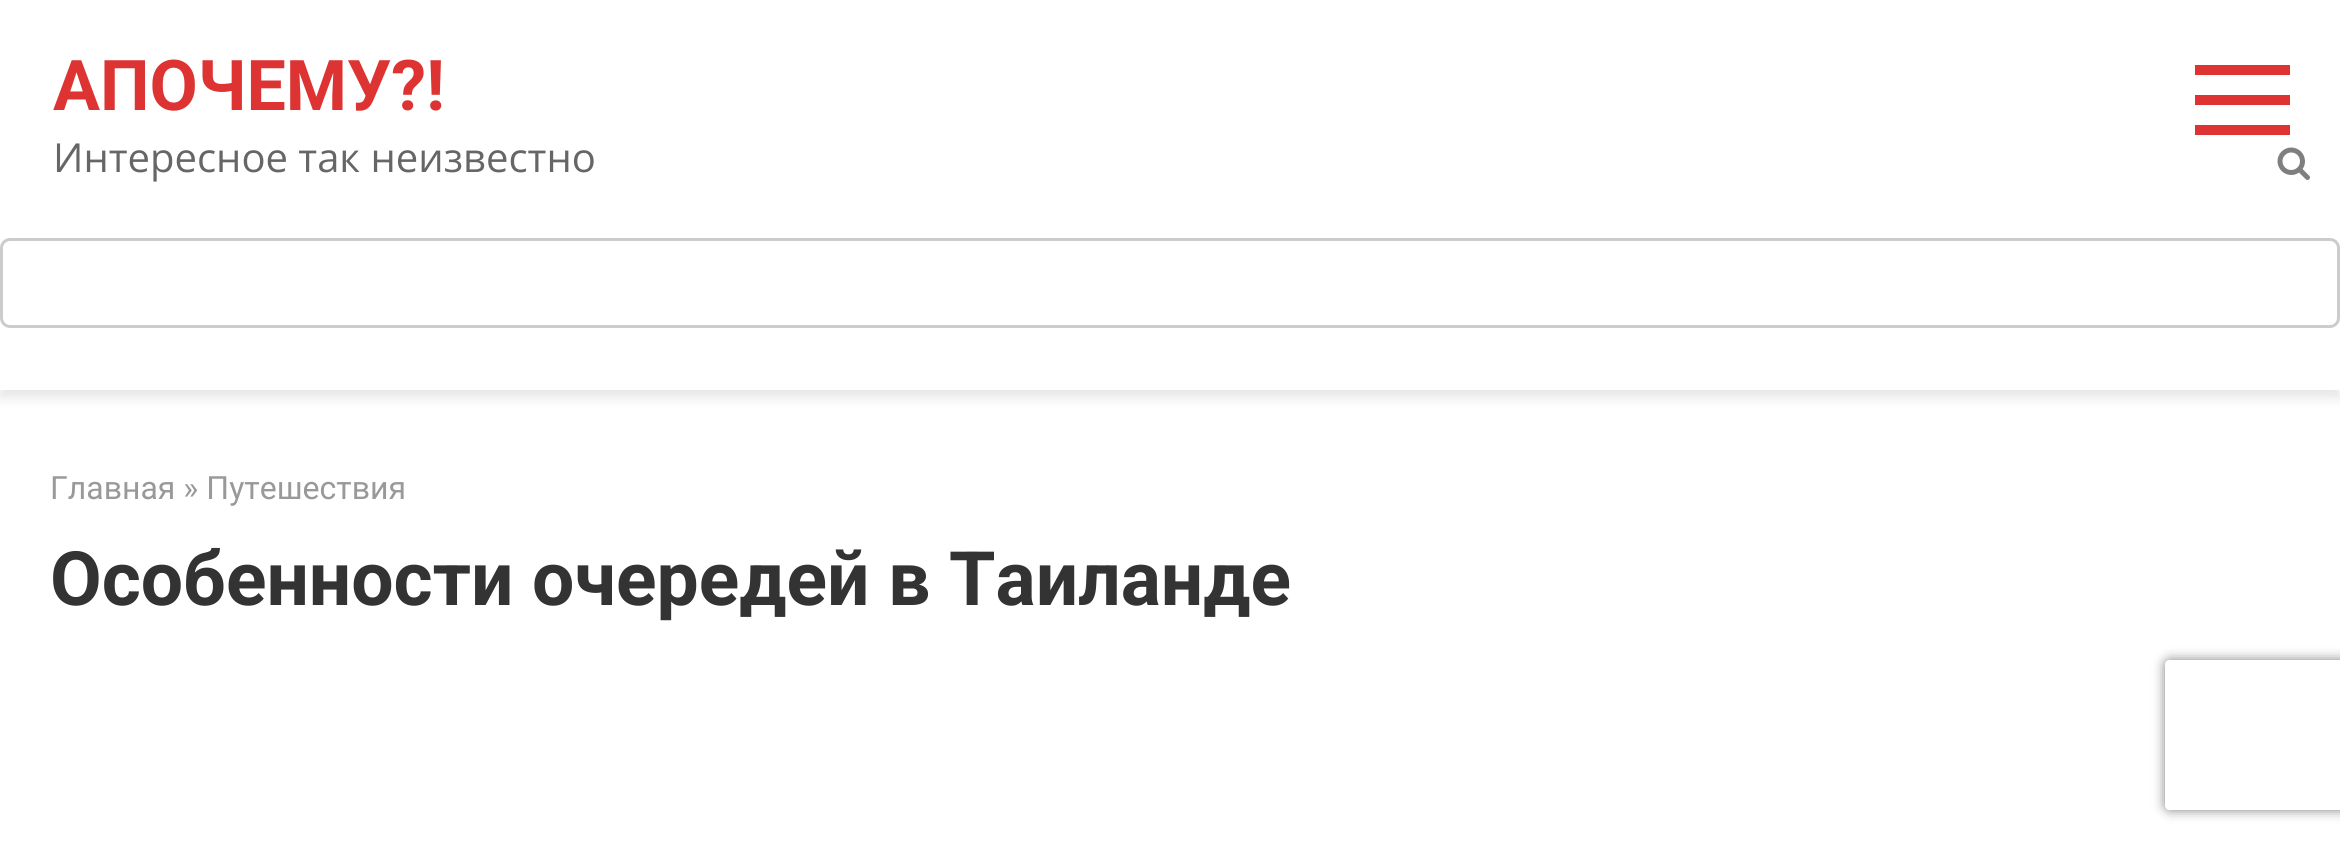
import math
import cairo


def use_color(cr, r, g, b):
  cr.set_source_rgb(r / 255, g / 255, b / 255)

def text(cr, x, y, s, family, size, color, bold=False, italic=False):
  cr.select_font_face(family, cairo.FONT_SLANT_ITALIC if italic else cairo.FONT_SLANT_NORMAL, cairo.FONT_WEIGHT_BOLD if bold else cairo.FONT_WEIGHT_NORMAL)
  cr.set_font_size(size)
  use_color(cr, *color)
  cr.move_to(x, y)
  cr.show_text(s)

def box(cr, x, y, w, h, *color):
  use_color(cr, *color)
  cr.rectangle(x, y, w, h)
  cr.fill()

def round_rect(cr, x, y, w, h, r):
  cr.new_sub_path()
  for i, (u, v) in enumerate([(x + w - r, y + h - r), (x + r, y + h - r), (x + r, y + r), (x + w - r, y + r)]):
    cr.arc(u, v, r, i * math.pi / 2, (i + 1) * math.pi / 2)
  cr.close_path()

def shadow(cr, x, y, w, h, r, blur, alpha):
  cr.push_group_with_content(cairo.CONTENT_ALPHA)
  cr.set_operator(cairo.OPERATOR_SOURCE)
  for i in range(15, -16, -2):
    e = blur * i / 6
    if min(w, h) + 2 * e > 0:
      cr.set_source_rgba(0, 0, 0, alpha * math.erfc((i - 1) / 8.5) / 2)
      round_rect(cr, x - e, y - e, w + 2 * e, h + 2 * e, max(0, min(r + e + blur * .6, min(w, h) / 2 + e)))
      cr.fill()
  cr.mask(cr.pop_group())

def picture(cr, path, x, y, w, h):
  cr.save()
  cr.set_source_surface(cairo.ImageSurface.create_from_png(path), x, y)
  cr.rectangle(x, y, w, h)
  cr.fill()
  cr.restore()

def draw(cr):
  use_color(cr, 255, 255, 255)
  cr.paint()
  use_color(cr, 0, 0, 0)
  shadow(cr, 0, 8, 2340, 390, 0, 6, 0.1)
  box(cr, 0, 0, 2340, 390, 255, 255, 255)
  box(cr, 2195, 65, 95, 10, 221, 51, 51)
  box(cr, 2195, 125, 95, 10, 221, 51, 51)
  box(cr, 2195, 95, 95, 10, 221, 51, 51)
  picture(cr, "img_01.png", 2277, 147, 33, 33)
  round_rect(cr, 1.5, 239.5, 2337, 87, 8.5)
  use_color(cr, 204, 204, 204)
  cr.set_line_width(3)
  cr.stroke()
  cr.save()
  cr.set_fill_rule(cairo.FILL_RULE_EVEN_ODD)
  cr.new_path()
  cr.move_to(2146, 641)
  cr.line_to(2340, 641)
  cr.line_to(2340, 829)
  cr.line_to(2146, 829)
  cr.close_path()
  cr.move_to(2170, 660)
  cr.line_to(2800, 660)
  cr.curve_to(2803, 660, 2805, 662, 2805, 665)
  cr.line_to(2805, 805)
  cr.curve_to(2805, 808, 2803, 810, 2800, 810)
  cr.line_to(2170, 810)
  cr.curve_to(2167, 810, 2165, 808, 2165, 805)
  cr.line_to(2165, 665)
  cr.curve_to(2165, 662, 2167, 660, 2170, 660)
  cr.close_path()
  cr.clip()
  use_color(cr, 128, 128, 128)
  shadow(cr, 2165, 660, 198, 150, 5, 6, 1)
  cr.restore()
  text(cr, 53, 110, "АПОЧЕМУ?!", "Roboto", 70, (221, 51, 51), bold=True)
  text(cr, 53, 172, "Интересное так неизвестно", "Open Sans", 40, (102, 102, 102))
  text(cr, 50, 499, "Главная » Путешествия", "Roboto", 32, (153, 153, 153))
  text(cr, 50, 605, "Особенности очередей в Таиланде", "Roboto", 75, (51, 51, 51), bold=True)


surface = cairo.ImageSurface(cairo.FORMAT_RGB24, 2340, 844)
cr = cairo.Context(surface)
options = cairo.FontOptions()
options.set_hint_metrics(cairo.HINT_METRICS_OFF)
options.set_hint_style(cairo.HINT_STYLE_NONE)
cr.set_font_options(options)
cr.set_miter_limit(4)
draw(cr)
surface.write_to_png("out.png")
